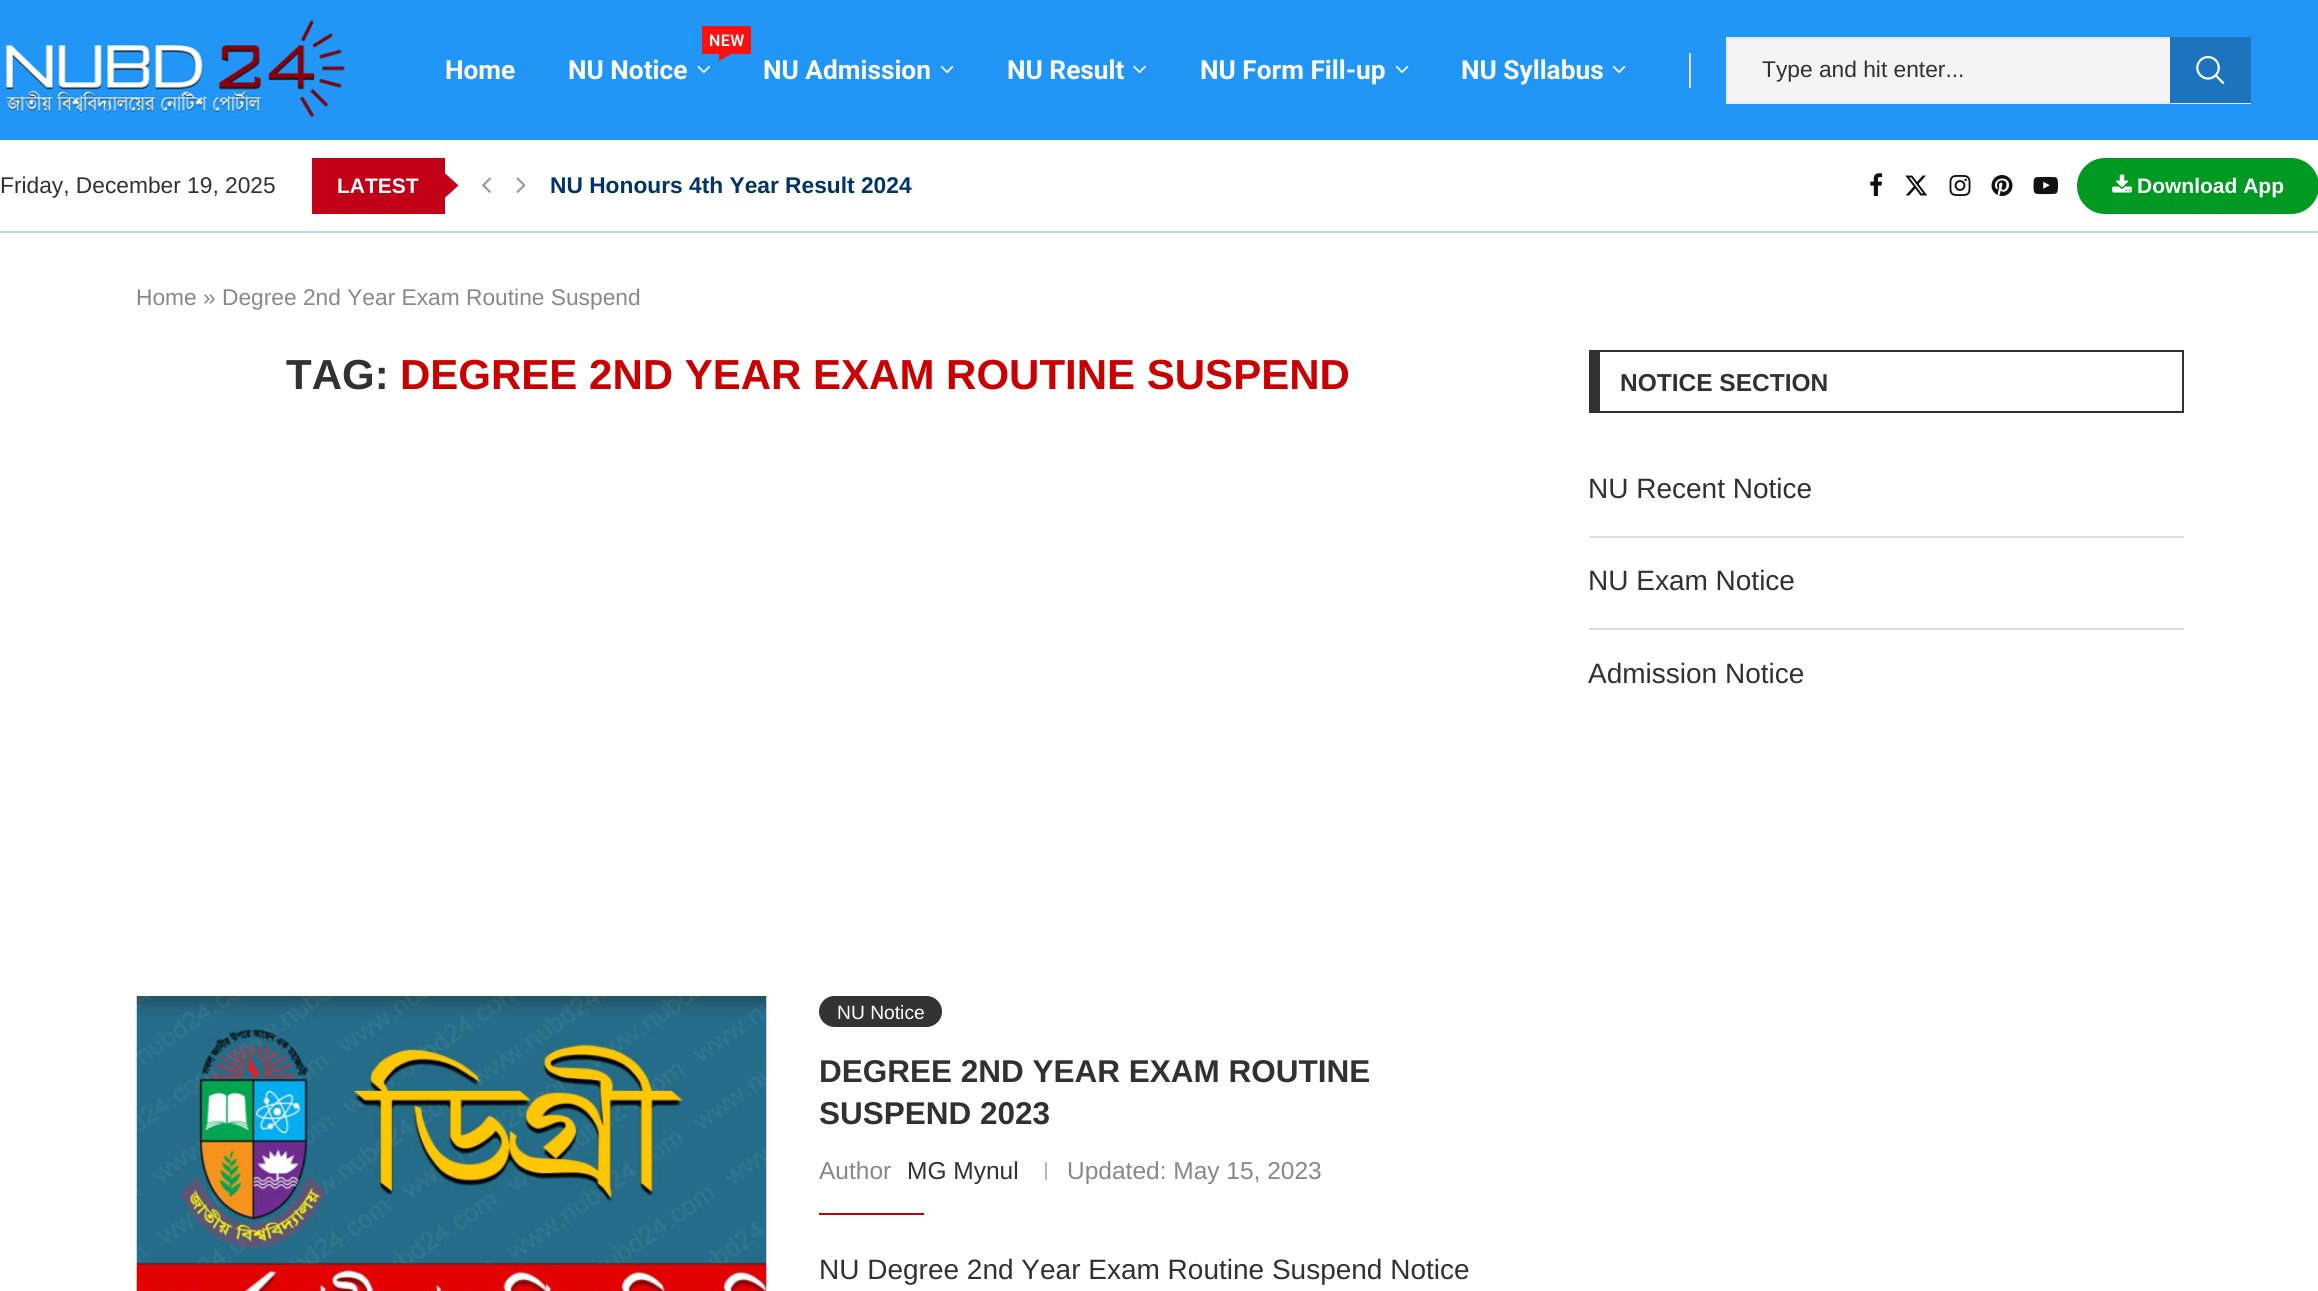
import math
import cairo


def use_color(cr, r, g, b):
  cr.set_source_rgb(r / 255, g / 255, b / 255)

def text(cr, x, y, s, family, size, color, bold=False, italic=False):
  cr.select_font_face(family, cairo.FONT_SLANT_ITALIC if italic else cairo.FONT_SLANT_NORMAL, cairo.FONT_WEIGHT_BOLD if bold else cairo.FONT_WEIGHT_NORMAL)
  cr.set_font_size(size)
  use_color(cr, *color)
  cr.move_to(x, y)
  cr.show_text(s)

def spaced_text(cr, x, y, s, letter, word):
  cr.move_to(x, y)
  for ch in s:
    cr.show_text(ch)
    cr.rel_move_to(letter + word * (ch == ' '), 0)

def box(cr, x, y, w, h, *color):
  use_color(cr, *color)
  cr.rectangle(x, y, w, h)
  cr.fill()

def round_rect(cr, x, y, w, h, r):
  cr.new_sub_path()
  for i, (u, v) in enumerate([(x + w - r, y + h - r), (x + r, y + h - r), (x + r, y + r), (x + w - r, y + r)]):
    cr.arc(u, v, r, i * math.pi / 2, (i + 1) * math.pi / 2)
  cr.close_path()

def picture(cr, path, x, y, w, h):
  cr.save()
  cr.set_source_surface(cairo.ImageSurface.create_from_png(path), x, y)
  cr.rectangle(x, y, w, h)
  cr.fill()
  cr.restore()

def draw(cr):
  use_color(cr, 255, 255, 255)
  cr.paint()
  box(cr, 0, 0, 2318, 140, 33, 150, 246)
  picture(cr, "img_01.png", 5, 20, 341, 98)
  box(cr, 702, 26, 49, 28, 252, 17, 17)
  cr.new_path()
  cr.move_to(719, 54)
  cr.line_to(731.5, 54)
  cr.line_to(719, 61)
  cr.close_path()
  cr.fill()
  picture(cr, "img_02.png", 697, 65, 14, 9)
  picture(cr, "img_03.png", 940, 65, 14, 9)
  picture(cr, "img_04.png", 1133, 65, 13, 9)
  picture(cr, "img_03.png", 1395, 65, 14, 9)
  picture(cr, "img_03.png", 1612, 65, 14, 9)
  box(cr, 1689, 53, 2, 35, 222, 222, 222)
  box(cr, 1728, 39, 442, 63, 244, 244, 244)
  box(cr, 1726, 37, 444, 2, 233, 233, 233)
  box(cr, 1726, 102, 525, 2, 233, 233, 233)
  box(cr, 1726, 37, 2, 66, 233, 233, 233)
  box(cr, 2170, 37, 81, 66, 30, 115, 190)
  picture(cr, "img_05.png", 2196, 56, 29, 28)
  box(cr, 0, 231, 2318, 2, 186, 217, 248)
  box(cr, 312, 158, 133, 56, 194, 0, 23)
  cr.new_path()
  cr.move_to(443, 199.5)
  cr.line_to(443, 171.5)
  cr.line_to(458.5, 185.5)
  cr.close_path()
  cr.fill()
  picture(cr, "img_06.png", 482, 177, 9, 16)
  picture(cr, "img_07.png", 516, 177, 10, 16)
  picture(cr, "img_08.png", 1870, 173, 13, 23)
  picture(cr, "img_09.png", 1905, 175, 23, 21)
  picture(cr, "img_10.png", 1949, 175, 22, 21)
  picture(cr, "img_11.png", 1991, 175, 22, 21)
  picture(cr, "img_12.png", 2033, 176, 25, 19)
  use_color(cr, 0, 153, 33)
  round_rect(cr, 2077, 158, 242, 56, 28)
  cr.fill()
  picture(cr, "img_13.png", 2112, 174, 20, 19)
  box(cr, 766, 996, 1, 295, 245, 245, 245)
  picture(cr, "img_14.png", 136, 995, 631, 296)
  use_color(cr, 51, 51, 51)
  round_rect(cr, 819, 996, 123, 31, 15.5)
  cr.fill()
  box(cr, 1045, 1162, 2, 18, 184, 184, 184)
  box(cr, 819, 1213, 105, 2, 201, 0, 0)
  box(cr, 1600, 350, 584, 2, 49, 49, 49)
  box(cr, 2182, 350, 2, 63, 49, 49, 49)
  box(cr, 1600, 411, 584, 2, 49, 49, 49)
  box(cr, 1589, 350, 11, 63, 49, 49, 49)
  box(cr, 1589, 536, 595, 2, 222, 222, 222)
  box(cr, 1589, 628, 595, 2, 222, 222, 222)
  text(cr, 445, 79, "Home", "Roboto", 26.25, (255, 255, 255), bold=True)
  cr.select_font_face("Roboto SemiBold")
  cr.set_font_size(16)
  spaced_text(cr, 709, 46, "NEW", 0.5, 0)
  text(cr, 568, 79, "NU Notice", "Roboto", 26.25, (255, 255, 255), bold=True)
  text(cr, 763, 79, "NU Admission", "Roboto", 26.25, (255, 255, 255), bold=True)
  text(cr, 1007, 79, "NU Result", "Roboto", 26.25, (255, 255, 255), bold=True)
  text(cr, 1200, 79, "NU Form Fill-up", "Roboto", 26.25, (255, 255, 255), bold=True)
  text(cr, 1461, 79, "NU Syllabus", "Roboto", 26.25, (255, 255, 255), bold=True)
  text(cr, 1762, 77, "Type and hit enter...", "Liberation Sans", 22.75, (49, 49, 49))
  text(cr, 0, 193, "Friday, December 19, 2025", "Liberation Sans", 22.75, (49, 49, 49))
  text(cr, 337, 193, "LATEST", "Liberation Sans", 21, (255, 255, 255), bold=True)
  text(cr, 550, 193, "NU Honours 4th Year Result 2024", "Liberation Sans", 22.75, (0, 51, 102), bold=True)
  text(cr, 2137, 193, "Download App", "Liberation Sans", 21, (255, 255, 255), bold=True)
  text(cr, 136, 305, "Home » Degree 2nd Year Exam Routine Suspend", "Liberation Sans", 22.75, (136, 136, 136))
  text(cr, 286, 389, "TAG:", "Liberation Sans", 42, (49, 49, 49), bold=True)
  text(cr, 400, 389, "DEGREE 2ND YEAR EXAM ROUTINE SUSPEND", "Liberation Sans", 42, (201, 0, 0), bold=True)
  text(cr, 837, 1019, "NU Notice", "Liberation Sans", 19.25, (255, 255, 255))
  text(cr, 819, 1082, "DEGREE 2ND YEAR EXAM ROUTINE", "Liberation Sans", 31.5, (49, 49, 49), bold=True)
  text(cr, 819, 1124, "SUSPEND 2023", "Liberation Sans", 31.5, (49, 49, 49), bold=True)
  text(cr, 819, 1179, "Author", "Liberation Sans", 24.5, (136, 136, 136))
  text(cr, 907, 1179, "MG Mynul", "Liberation Sans", 24.5, (49, 49, 49))
  text(cr, 1067, 1179, "Updated: May 15, 2023", "Liberation Sans", 24.5, (136, 136, 136))
  text(cr, 819, 1279, "NU Degree 2nd Year Exam Routine Suspend Notice", "Liberation Sans", 28, (49, 49, 49))
  text(cr, 1620, 391, "NOTICE SECTION", "Liberation Sans", 24.5, (49, 49, 49), bold=True)
  text(cr, 1588, 498, "NU Recent Notice", "Liberation Sans", 28, (49, 49, 49))
  text(cr, 1588, 590, "NU Exam Notice", "Liberation Sans", 28, (49, 49, 49))
  text(cr, 1588, 683, "Admission Notice", "Liberation Sans", 28, (49, 49, 49))


surface = cairo.ImageSurface(cairo.FORMAT_RGB24, 2318, 1291)
cr = cairo.Context(surface)
options = cairo.FontOptions()
options.set_hint_metrics(cairo.HINT_METRICS_OFF)
options.set_hint_style(cairo.HINT_STYLE_NONE)
cr.set_font_options(options)
cr.set_miter_limit(4)
draw(cr)
surface.write_to_png("out.png")
